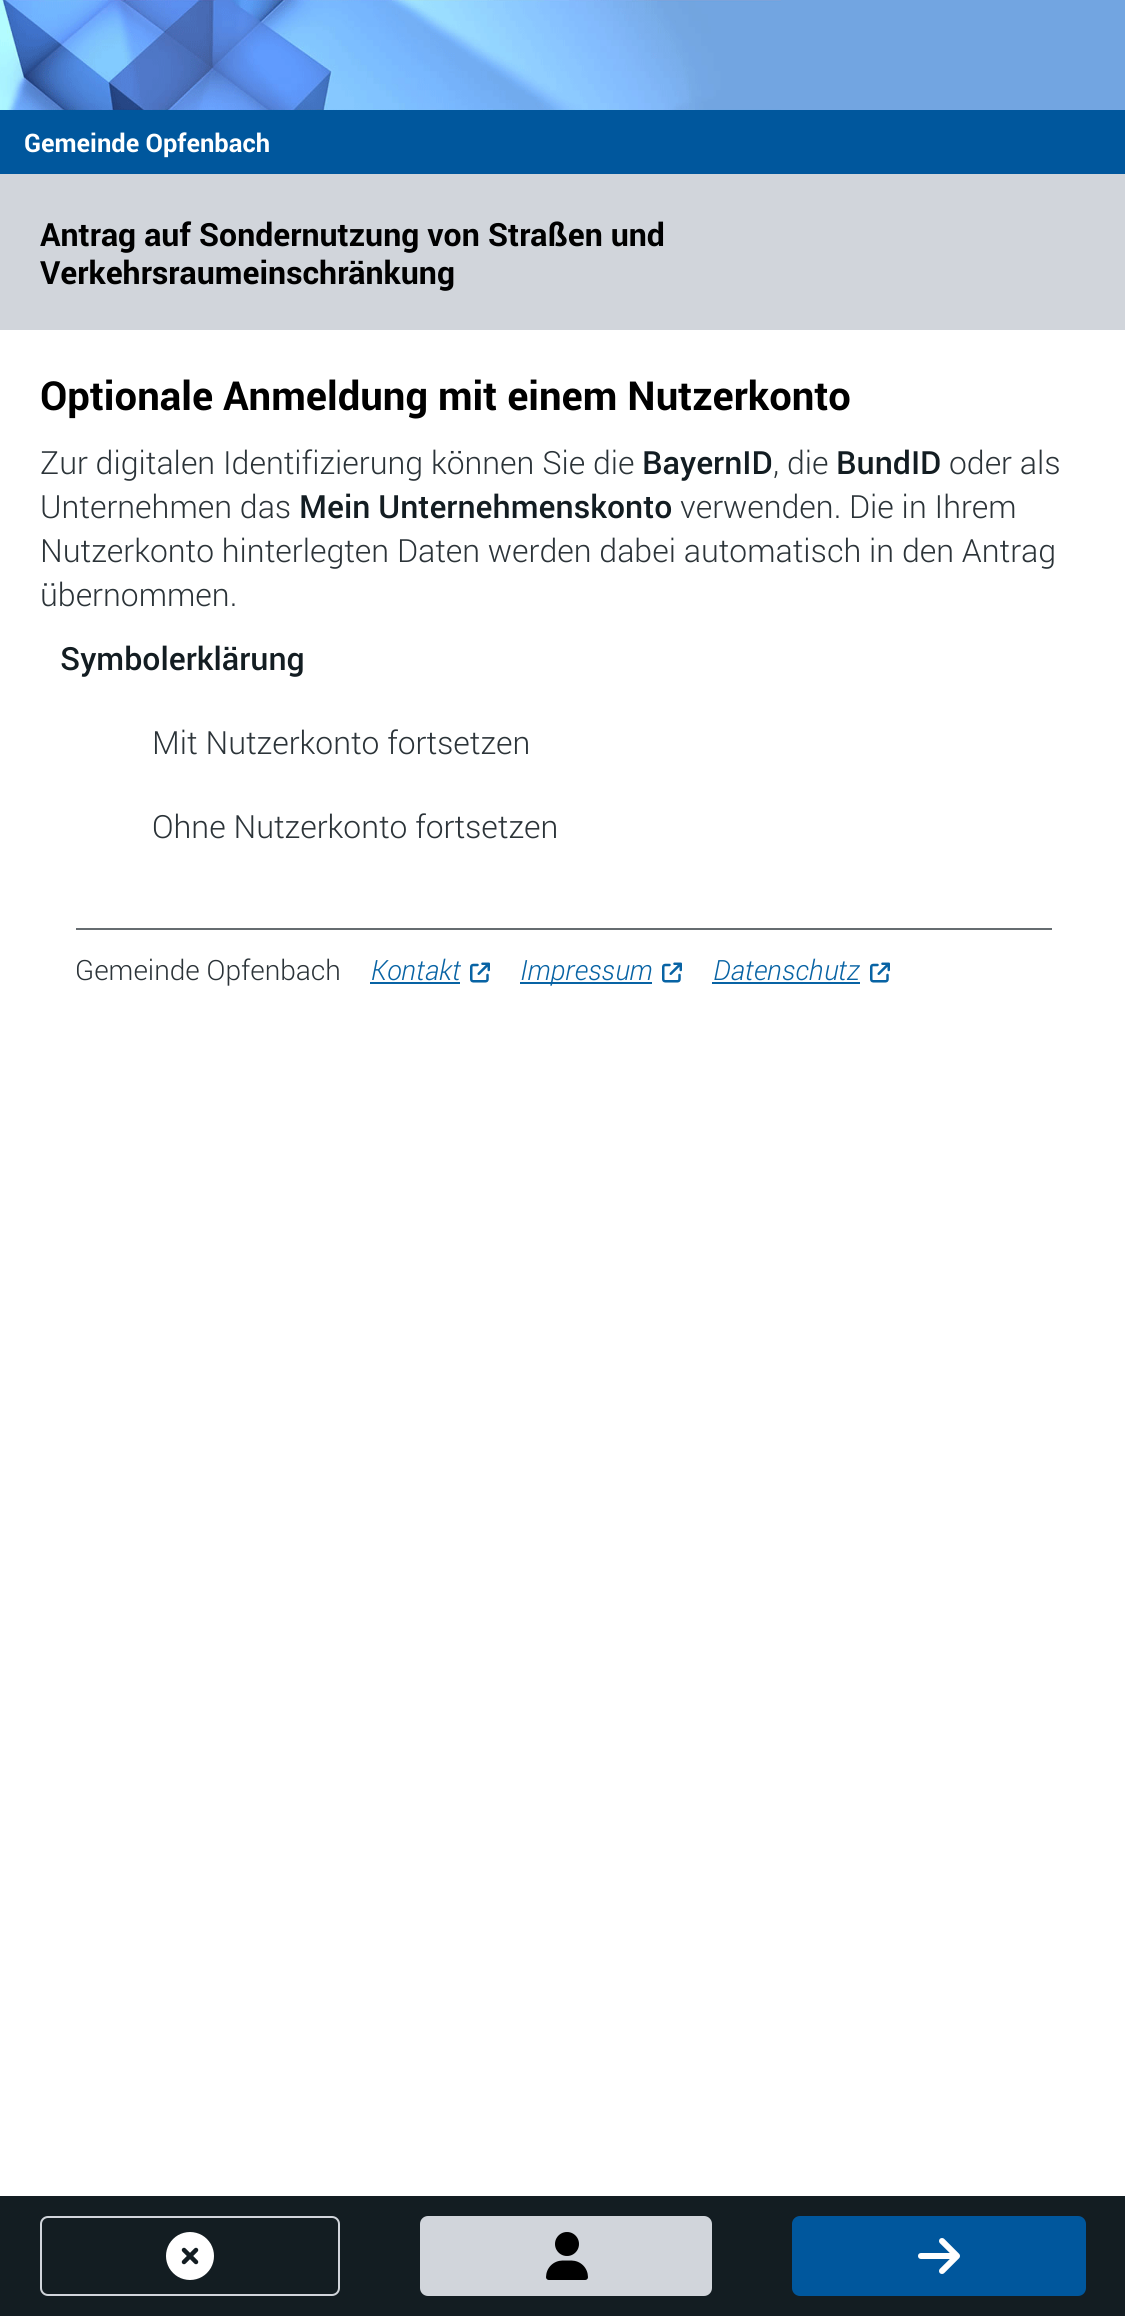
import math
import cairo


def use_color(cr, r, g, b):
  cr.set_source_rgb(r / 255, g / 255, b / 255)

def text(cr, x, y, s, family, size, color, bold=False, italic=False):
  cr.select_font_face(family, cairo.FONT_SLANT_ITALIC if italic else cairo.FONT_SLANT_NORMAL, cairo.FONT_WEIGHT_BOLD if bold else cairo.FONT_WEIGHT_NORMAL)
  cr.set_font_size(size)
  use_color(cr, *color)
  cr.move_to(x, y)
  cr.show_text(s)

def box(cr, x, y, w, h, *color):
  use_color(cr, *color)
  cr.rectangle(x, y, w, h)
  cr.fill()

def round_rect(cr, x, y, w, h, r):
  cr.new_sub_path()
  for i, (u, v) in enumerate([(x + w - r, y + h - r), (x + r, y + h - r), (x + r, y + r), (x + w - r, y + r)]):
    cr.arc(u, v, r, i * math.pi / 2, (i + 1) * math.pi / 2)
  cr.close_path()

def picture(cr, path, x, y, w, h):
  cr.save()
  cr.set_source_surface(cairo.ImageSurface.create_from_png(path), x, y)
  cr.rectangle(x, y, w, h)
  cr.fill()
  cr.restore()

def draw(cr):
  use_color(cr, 255, 255, 255)
  cr.paint()
  picture(cr, "img_01.png", 0, 0, 1125, 110)
  box(cr, 0, 110, 1125, 64, 0, 87, 157)
  box(cr, 0, 174, 1125, 156, 209, 213, 219)
  box(cr, 0, 2196, 1125, 120, 19, 29, 34)
  round_rect(cr, 41, 2217, 298, 78, 7)
  use_color(cr, 209, 213, 219)
  cr.stroke()
  picture(cr, "img_02.png", 166, 2232, 48, 48)
  round_rect(cr, 421, 2217, 290, 78, 7)
  cr.fill_preserve()
  cr.stroke()
  picture(cr, "img_03.png", 546, 2232, 42, 48)
  use_color(cr, 0, 87, 157)
  round_rect(cr, 793, 2217, 292, 78, 7)
  cr.fill_preserve()
  cr.stroke()
  picture(cr, "img_04.png", 918, 2238, 42, 36)
  box(cr, 76, 928, 976, 2, 102, 108, 112)
  box(cr, 370, 982, 90, 2, 8, 99, 164)
  picture(cr, "img_05.png", 470, 962, 20, 21)
  box(cr, 520, 982, 132, 2, 8, 99, 164)
  picture(cr, "img_05.png", 662, 962, 20, 21)
  box(cr, 712, 982, 148, 2, 8, 99, 164)
  picture(cr, "img_05.png", 870, 962, 20, 21)
  text(cr, 24, 152, "Gemeinde Opfenbach", "Roboto", 25.5, (255, 255, 255), bold=True)
  text(cr, 40, 246, "Antrag auf Sondernutzung von Straßen und", "Roboto", 32, (0, 0, 0), bold=True)
  text(cr, 40, 284, "Verkehrsraumeinschränkung", "Roboto", 32, (0, 0, 0), bold=True)
  text(cr, 40, 410, "Optionale Anmeldung mit einem Nutzerkonto", "Roboto", 40, (0, 0, 0), bold=True)
  text(cr, 40, 474, "Zur digitalen Identifizierung können Sie die", "Roboto Light", 32, (43, 51, 56))
  text(cr, 642, 474, "BayernID", "Roboto Medium", 32, (19, 29, 34))
  text(cr, 773, 474, ", die", "Roboto Light", 32, (43, 51, 56))
  text(cr, 836, 474, "BundID", "Roboto Medium", 32, (19, 29, 34))
  text(cr, 949, 474, "oder als", "Roboto Light", 32, (43, 51, 56))
  text(cr, 40, 518, "Unternehmen das", "Roboto Light", 32, (43, 51, 56))
  text(cr, 299, 518, "Mein Unternehmenskonto", "Roboto Medium", 32, (19, 29, 34))
  text(cr, 680, 518, "verwenden. Die in Ihrem", "Roboto Light", 32, (43, 51, 56))
  text(cr, 40, 562, "Nutzerkonto hinterlegten Daten werden dabei automatisch in den Antrag", "Roboto Light", 32, (43, 51, 56))
  text(cr, 40, 606, "übernommen.", "Roboto Light", 32, (43, 51, 56))
  text(cr, 60, 670, "Symbolerklärung", "Roboto Medium", 32, (19, 29, 34))
  text(cr, 152, 754, "Mit Nutzerkonto fortsetzen", "Roboto Light", 32, (43, 51, 56))
  text(cr, 152, 838, "Ohne Nutzerkonto fortsetzen", "Roboto Light", 32, (43, 51, 56))
  text(cr, 75, 980, "Gemeinde Opfenbach", "Roboto Light", 28, (43, 51, 56))
  text(cr, 371, 980, "Kontakt", "Roboto Light", 28, (8, 99, 164), italic=True)
  text(cr, 520, 980, "Impressum", "Roboto Light", 28, (8, 99, 164), italic=True)
  text(cr, 713, 980, "Datenschutz", "Roboto Light", 28, (8, 99, 164), italic=True)


surface = cairo.ImageSurface(cairo.FORMAT_RGB24, 1125, 2316)
cr = cairo.Context(surface)
options = cairo.FontOptions()
options.set_hint_metrics(cairo.HINT_METRICS_OFF)
options.set_hint_style(cairo.HINT_STYLE_NONE)
cr.set_font_options(options)
cr.set_miter_limit(4)
draw(cr)
surface.write_to_png("out.png")
